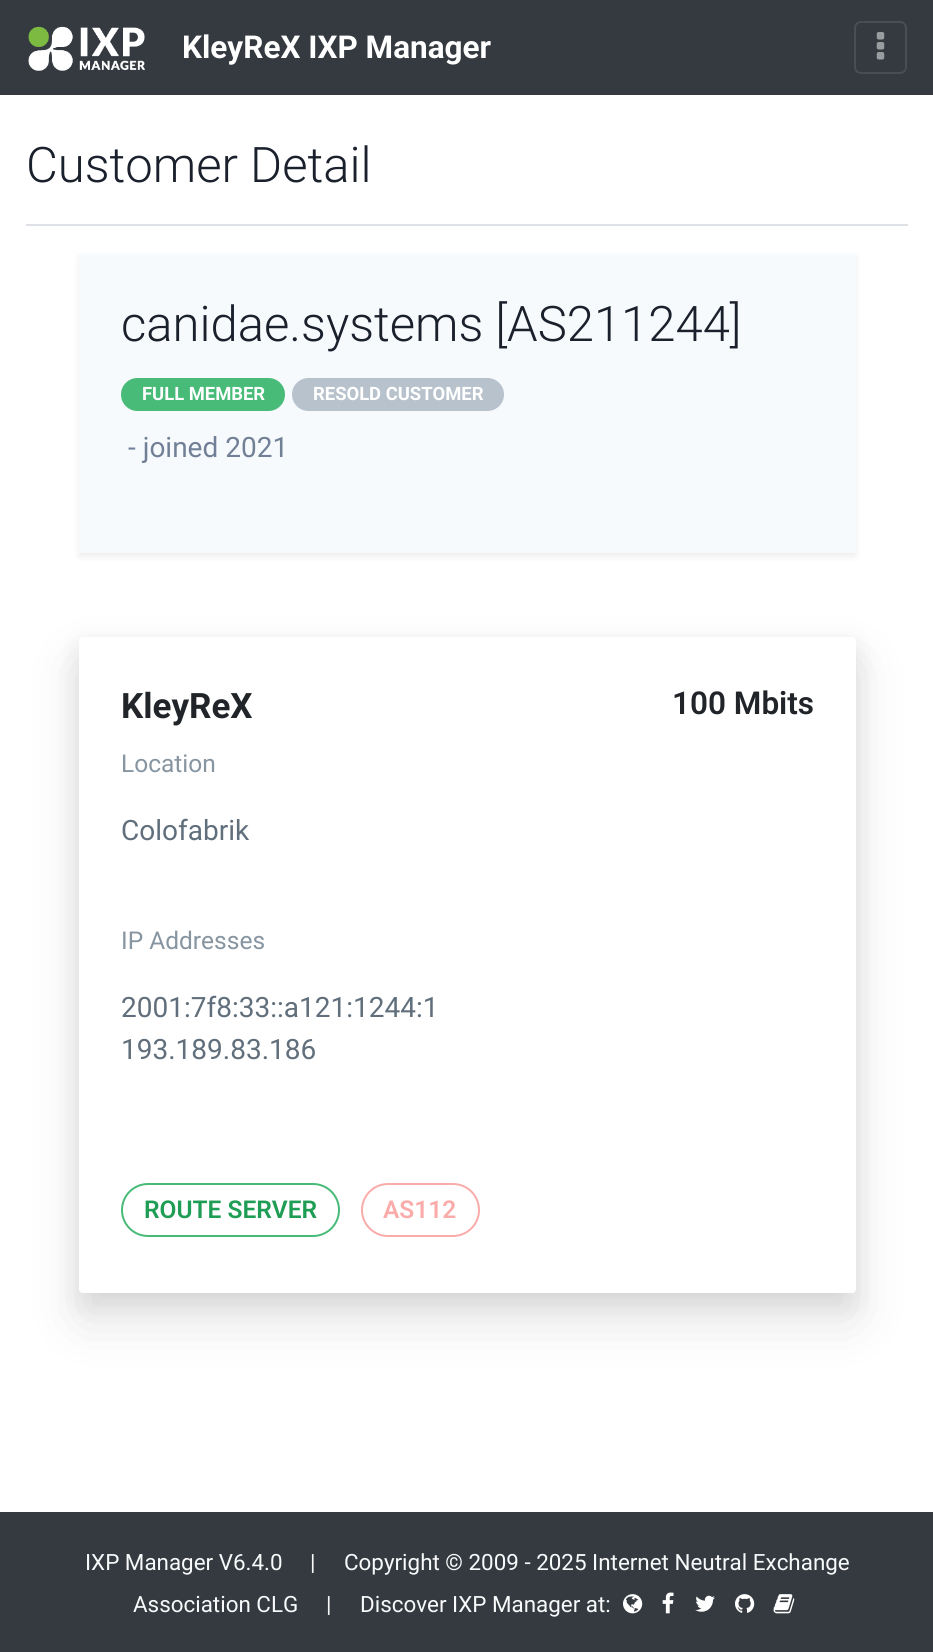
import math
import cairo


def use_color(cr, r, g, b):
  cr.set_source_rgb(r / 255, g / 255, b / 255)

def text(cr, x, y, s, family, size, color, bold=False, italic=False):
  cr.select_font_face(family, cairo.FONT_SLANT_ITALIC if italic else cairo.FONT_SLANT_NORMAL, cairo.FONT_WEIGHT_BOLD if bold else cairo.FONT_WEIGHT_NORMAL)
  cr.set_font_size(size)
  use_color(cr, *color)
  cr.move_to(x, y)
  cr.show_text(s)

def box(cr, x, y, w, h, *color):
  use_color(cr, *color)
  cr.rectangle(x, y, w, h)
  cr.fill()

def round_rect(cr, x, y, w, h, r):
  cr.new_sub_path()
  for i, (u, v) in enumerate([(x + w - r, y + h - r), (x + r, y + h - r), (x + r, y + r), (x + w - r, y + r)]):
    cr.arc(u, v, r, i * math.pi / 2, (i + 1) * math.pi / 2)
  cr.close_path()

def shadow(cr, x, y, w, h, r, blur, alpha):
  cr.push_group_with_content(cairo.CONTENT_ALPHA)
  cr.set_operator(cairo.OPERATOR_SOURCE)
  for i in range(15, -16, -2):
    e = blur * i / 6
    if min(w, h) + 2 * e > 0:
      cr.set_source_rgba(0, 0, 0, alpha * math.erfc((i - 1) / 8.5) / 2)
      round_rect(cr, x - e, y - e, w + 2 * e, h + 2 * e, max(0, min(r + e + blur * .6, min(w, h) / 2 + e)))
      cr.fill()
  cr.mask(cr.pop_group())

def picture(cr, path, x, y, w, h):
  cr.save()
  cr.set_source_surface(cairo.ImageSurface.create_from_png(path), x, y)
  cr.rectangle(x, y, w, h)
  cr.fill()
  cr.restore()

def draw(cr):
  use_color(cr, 255, 255, 255)
  cr.paint()
  box(cr, 0, 0, 933, 95, 52, 58, 64)
  picture(cr, "img_01.png", 28, 26, 117, 45)
  round_rect(cr, 855, 22, 51, 51, 6)
  use_color(cr, 72, 78, 83)
  cr.stroke()
  picture(cr, "img_02.png", 876, 32, 9, 28)
  box(cr, 26, 224, 882, 2, 222, 226, 230)
  use_color(cr, 0, 0, 0)
  shadow(cr, 79, 257, 777, 300, 0, 3.5, 0.07)
  box(cr, 79, 254, 777, 299, 247, 250, 252)
  use_color(cr, 72, 187, 120)
  round_rect(cr, 121, 378, 164, 33, 16.5)
  cr.fill()
  use_color(cr, 184, 194, 204)
  round_rect(cr, 292, 378, 212, 33, 16.5)
  cr.fill()
  cr.save()
  cr.set_fill_rule(cairo.FILL_RULE_EVEN_ODD)
  cr.new_path()
  cr.move_to(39, 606)
  cr.line_to(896, 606)
  cr.line_to(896, 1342)
  cr.line_to(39, 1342)
  cr.close_path()
  cr.move_to(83, 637)
  cr.line_to(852, 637)
  cr.curve_to(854, 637, 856, 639, 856, 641)
  cr.line_to(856, 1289)
  cr.curve_to(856, 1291, 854, 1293, 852, 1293)
  cr.line_to(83, 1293)
  cr.curve_to(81, 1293, 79, 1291, 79, 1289)
  cr.line_to(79, 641)
  cr.curve_to(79, 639, 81, 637, 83, 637)
  cr.close_path()
  cr.clip()
  use_color(cr, 0, 0, 0)
  shadow(cr, 79, 646, 777, 656, 4, 13, 0.08)
  cr.restore()
  cr.save()
  cr.set_fill_rule(cairo.FILL_RULE_EVEN_ODD)
  cr.new_path()
  cr.move_to(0, 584)
  cr.line_to(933, 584)
  cr.line_to(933, 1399)
  cr.line_to(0, 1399)
  cr.close_path()
  cr.move_to(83, 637)
  cr.line_to(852, 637)
  cr.curve_to(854, 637, 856, 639, 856, 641)
  cr.line_to(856, 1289)
  cr.curve_to(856, 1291, 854, 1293, 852, 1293)
  cr.line_to(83, 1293)
  cr.curve_to(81, 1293, 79, 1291, 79, 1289)
  cr.line_to(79, 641)
  cr.curve_to(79, 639, 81, 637, 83, 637)
  cr.close_path()
  cr.clip()
  use_color(cr, 0, 0, 0)
  shadow(cr, 79, 663, 777, 657, 4, 26, 0.11)
  cr.restore()
  round_rect(cr, 122, 1184, 217, 52, 26)
  use_color(cr, 72, 187, 120)
  cr.stroke()
  round_rect(cr, 362, 1184, 117, 52, 26)
  use_color(cr, 249, 172, 170)
  cr.stroke()
  box(cr, 0, 1512, 933, 140, 52, 58, 64)
  picture(cr, "img_03.png", 623, 1594, 20, 20)
  picture(cr, "img_04.png", 662, 1592, 12, 22)
  picture(cr, "img_05.png", 695, 1595, 20, 17)
  picture(cr, "img_06.png", 735, 1594, 20, 19)
  picture(cr, "img_07.png", 773, 1594, 22, 20)
  text(cr, 182, 58, "KleyReX IXP Manager", "Roboto", 31.5, (255, 255, 255), bold=True)
  text(cr, 26, 182, "Customer Detail", "Roboto Light", 49, (26, 32, 44))
  text(cr, 121, 341, "canidae.systems [AS211244]", "Roboto Light", 49, (26, 32, 44))
  text(cr, 142, 400, "FULL MEMBER", "Roboto", 18.4, (255, 255, 255), bold=True)
  text(cr, 313, 400, "RESOLD CUSTOMER", "Roboto", 18.4, (255, 255, 255), bold=True)
  text(cr, 128, 457, "- joined 2021", "Roboto", 28, (113, 128, 150))
  text(cr, 121, 718, "KleyReX", "Roboto", 35, (33, 37, 41), bold=True)
  text(cr, 672, 714, "100 Mbits", "Roboto SemiBold", 31.5, (33, 37, 41))
  text(cr, 121, 772, "Location", "Roboto", 24.5, (135, 149, 161))
  text(cr, 121, 840, "Colofabrik", "Roboto", 28, (96, 111, 123))
  text(cr, 121, 949, "IP Addresses", "Roboto", 24.5, (135, 149, 161))
  text(cr, 121, 1017, "2001:7f8:33::a121:1244:1", "Roboto", 28, (96, 111, 123))
  text(cr, 121, 1059, "193.189.83.186", "Roboto", 28, (96, 111, 123))
  text(cr, 144, 1218, "ROUTE SERVER", "Roboto SemiBold", 24.5, (31, 157, 85))
  text(cr, 383, 1218, "AS112", "Roboto SemiBold", 24.5, (249, 172, 170))
  text(cr, 85, 1570, "IXP Manager V6.4.0", "Roboto", 22.4, (248, 249, 250))
  text(cr, 310, 1570, "|", "Roboto", 22.4, (248, 249, 250))
  text(cr, 344, 1570, "Copyright © 2009 - 2025 Internet Neutral Exchange", "Roboto", 22.4, (248, 249, 250))
  text(cr, 133, 1612, "Association CLG", "Roboto", 22.4, (248, 249, 250))
  text(cr, 326, 1612, "|", "Roboto", 22.4, (248, 249, 250))
  text(cr, 360, 1612, "Discover IXP Manager at:", "Roboto", 22.4, (248, 249, 250))


surface = cairo.ImageSurface(cairo.FORMAT_RGB24, 933, 1652)
cr = cairo.Context(surface)
options = cairo.FontOptions()
options.set_hint_metrics(cairo.HINT_METRICS_OFF)
options.set_hint_style(cairo.HINT_STYLE_NONE)
cr.set_font_options(options)
cr.set_miter_limit(4)
draw(cr)
surface.write_to_png("out.png")
